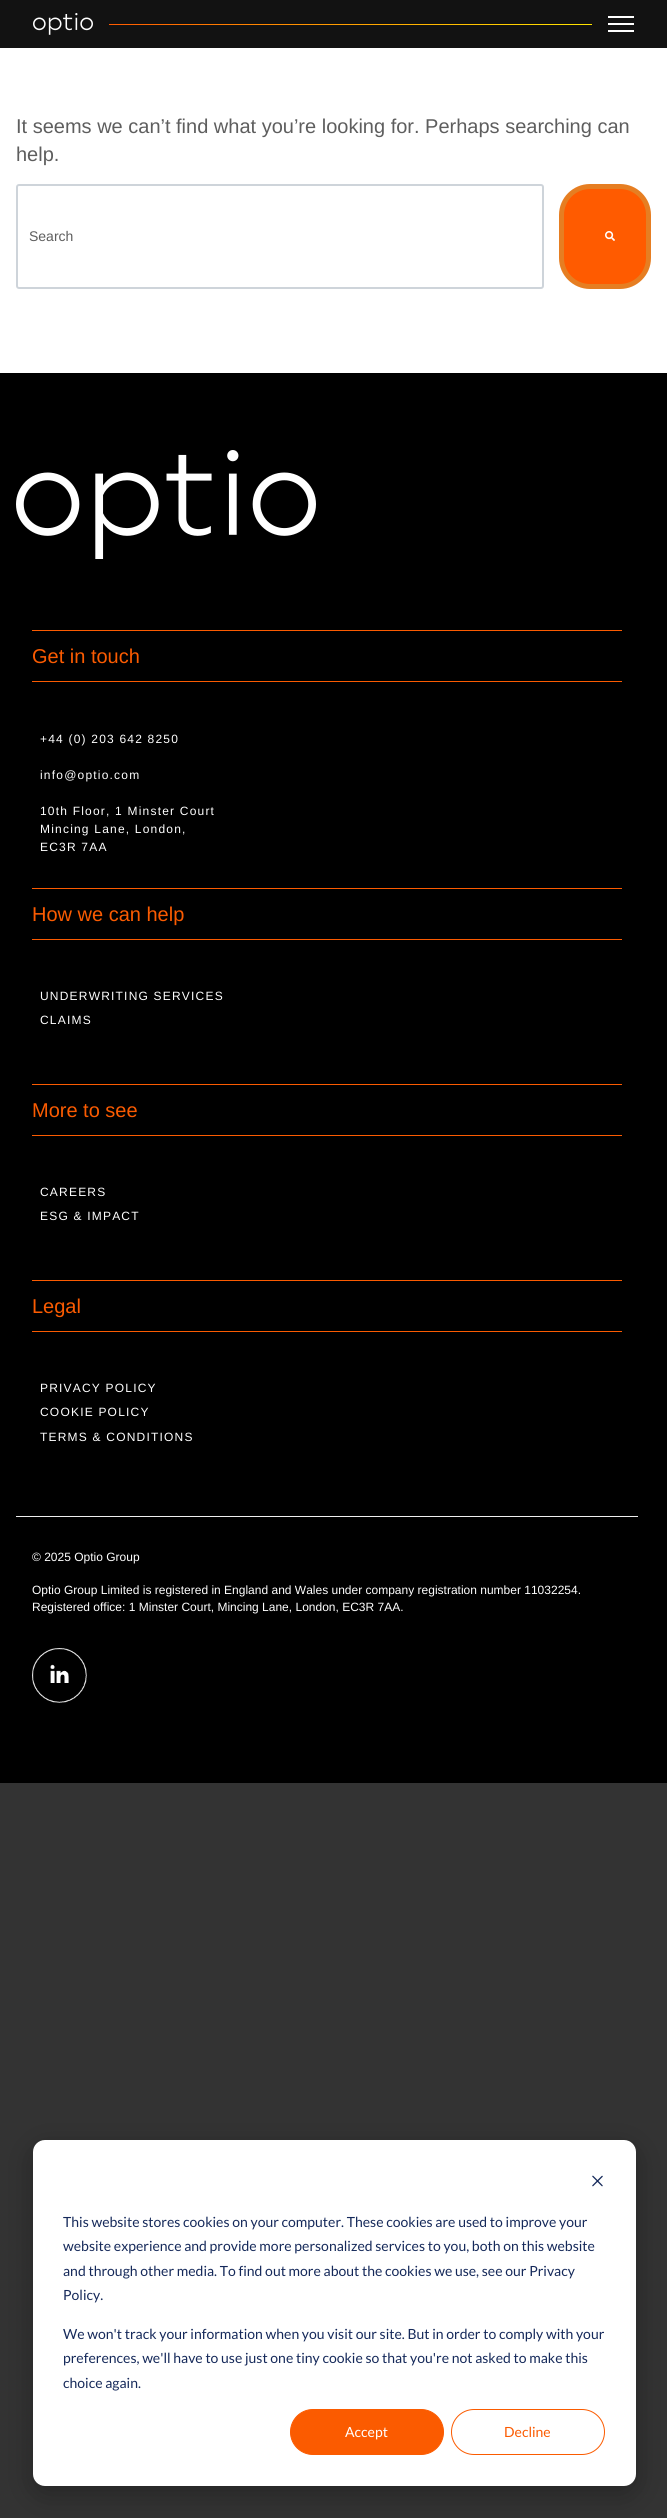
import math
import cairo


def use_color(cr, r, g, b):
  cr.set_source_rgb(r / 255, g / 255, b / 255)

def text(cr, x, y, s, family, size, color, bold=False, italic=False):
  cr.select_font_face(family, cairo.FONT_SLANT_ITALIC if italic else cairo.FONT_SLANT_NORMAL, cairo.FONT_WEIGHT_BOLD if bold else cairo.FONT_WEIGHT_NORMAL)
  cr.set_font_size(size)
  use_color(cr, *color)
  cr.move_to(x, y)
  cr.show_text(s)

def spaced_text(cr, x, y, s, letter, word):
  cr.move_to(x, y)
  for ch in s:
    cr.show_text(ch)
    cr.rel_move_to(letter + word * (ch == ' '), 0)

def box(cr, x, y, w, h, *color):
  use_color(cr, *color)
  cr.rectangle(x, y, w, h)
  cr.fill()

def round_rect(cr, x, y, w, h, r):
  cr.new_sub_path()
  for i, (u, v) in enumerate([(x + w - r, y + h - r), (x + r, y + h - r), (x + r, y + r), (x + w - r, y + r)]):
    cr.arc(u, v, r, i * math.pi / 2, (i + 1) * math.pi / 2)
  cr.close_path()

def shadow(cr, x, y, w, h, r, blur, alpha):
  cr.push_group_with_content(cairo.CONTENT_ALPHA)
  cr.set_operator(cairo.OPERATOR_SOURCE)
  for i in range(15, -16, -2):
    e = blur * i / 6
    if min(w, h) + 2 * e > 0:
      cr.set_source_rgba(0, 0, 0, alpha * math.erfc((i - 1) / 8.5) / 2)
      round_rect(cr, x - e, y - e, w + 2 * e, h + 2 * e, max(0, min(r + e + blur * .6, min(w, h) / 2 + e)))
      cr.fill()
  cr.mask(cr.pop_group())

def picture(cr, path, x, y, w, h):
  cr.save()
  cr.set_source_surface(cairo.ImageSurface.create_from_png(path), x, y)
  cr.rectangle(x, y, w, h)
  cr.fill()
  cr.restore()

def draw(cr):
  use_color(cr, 51, 51, 51)
  cr.paint()
  box(cr, 0, 48, 667, 325, 255, 255, 255)
  box(cr, 0, 0, 667, 48, 18, 18, 18)
  picture(cr, "img_01.png", 33, 13, 60, 22)
  gradient = cairo.LinearGradient(109, 25, 592, 24)
  gradient.add_color_stop_rgba(0, 1, 0.357, 0, 1)
  gradient.add_color_stop_rgba(1, 1, 0.898, 0, 1)
  cr.set_source(gradient)
  cr.rectangle(109, 24, 483, 1)
  cr.fill()
  box(cr, 608, 23, 26, 2, 255, 255, 255)
  box(cr, 608, 16, 26, 2, 255, 255, 255)
  box(cr, 608, 30, 26, 2, 255, 255, 255)
  round_rect(cr, 17, 185, 526, 103, 2)
  use_color(cr, 206, 212, 218)
  cr.stroke()
  use_color(cr, 255, 91, 0)
  round_rect(cr, 561.5, 186.5, 87, 100, 28.5)
  cr.fill_preserve()
  use_color(cr, 230, 126, 34)
  cr.set_line_width(5)
  cr.stroke()
  picture(cr, "img_02.png", 605, 231, 10, 10)
  box(cr, 0, 373, 667, 1410, 0, 0, 0)
  picture(cr, "img_03.png", 16, 450, 300, 109)
  box(cr, 32, 630, 590, 1, 251, 91, 1)
  box(cr, 32, 681, 590, 1, 251, 91, 1)
  box(cr, 32, 888, 590, 1, 251, 91, 1)
  box(cr, 32, 939, 590, 1, 251, 91, 1)
  box(cr, 32, 1084, 590, 1, 251, 91, 1)
  box(cr, 32, 1135, 590, 1, 251, 91, 1)
  box(cr, 32, 1280, 590, 1, 251, 91, 1)
  box(cr, 32, 1331, 590, 1, 251, 91, 1)
  box(cr, 16, 1516, 622, 1, 238, 238, 238)
  picture(cr, "img_04.png", 32, 1648, 55, 55)
  use_color(cr, 0, 0, 0)
  shadow(cr, 33, 2148, 603, 346, 12, 14, 0.28)
  use_color(cr, 255, 255, 255)
  round_rect(cr, 33, 2140, 603, 346, 12)
  cr.fill()
  picture(cr, "img_05.png", 592, 2175, 11, 12)
  use_color(cr, 251, 91, 0)
  round_rect(cr, 290.5, 2409.5, 153, 45, 22.5)
  cr.fill_preserve()
  cr.set_line_width(1)
  cr.stroke()
  round_rect(cr, 451.5, 2409.5, 153, 45, 22.5)
  cr.stroke()
  text(cr, 16, 133, "It seems we can’t find what you’re looking for. Perhaps searching can", "Liberation Sans", 20, (94, 94, 94))
  text(cr, 16, 161, "help.", "Liberation Sans", 20, (94, 94, 94))
  text(cr, 29, 241, "Search", "Liberation Sans", 14, (94, 94, 94))
  text(cr, 32, 663, "Get in touch", "Liberation Sans", 20, (251, 91, 1))
  cr.set_font_size(12)
  use_color(cr, 255, 255, 255)
  spaced_text(cr, 40, 743, "+44 (0) 203 642 8250", 1.2, 0)
  spaced_text(cr, 40, 779, "info@optio.com", 1.2, 0)
  spaced_text(cr, 40, 815, "10th Floor, 1 Minster Court", 1.2, 0)
  spaced_text(cr, 40, 833, "Mincing Lane, London,", 1.2, 0)
  spaced_text(cr, 40, 851, "EC3R 7AA", 1.2, 0)
  text(cr, 32, 921, "How we can help", "Liberation Sans", 20, (251, 91, 1))
  cr.set_font_size(12)
  use_color(cr, 255, 255, 255)
  spaced_text(cr, 40, 1000, "UNDERWRITING SERVICES", 1.2, 0)
  spaced_text(cr, 40, 1024, "CLAIMS", 1.2, 0)
  text(cr, 32, 1117, "More to see", "Liberation Sans", 20, (251, 91, 1))
  cr.set_font_size(12)
  use_color(cr, 255, 255, 255)
  spaced_text(cr, 40, 1196, "CAREERS", 1.2, 0)
  spaced_text(cr, 40, 1220, "ESG & IMPACT", 1.2, 0)
  text(cr, 32, 1313, "Legal", "Liberation Sans", 20, (251, 91, 1))
  cr.set_font_size(12)
  use_color(cr, 255, 255, 255)
  spaced_text(cr, 40, 1392, "PRIVACY POLICY", 1.2, 0)
  spaced_text(cr, 40, 1416, "COOKIE POLICY", 1.2, 0)
  spaced_text(cr, 40, 1441, "TERMS & CONDITIONS", 1.2, 0)
  text(cr, 32, 1561, "© 2025 Optio Group", "Liberation Sans", 12, (255, 255, 255))
  text(cr, 32, 1594, "Optio Group Limited is registered in England and Wales under company registration number 11032254.", "Liberation Sans", 12, (255, 255, 255))
  text(cr, 32, 1611, "Registered office: 1 Minster Court, Mincing Lane, London, EC3R 7AA.", "Liberation Sans", 12, (255, 255, 255))
  text(cr, 63, 2227, "This website stores cookies on your computer. These cookies are used to improve your", "Lato", 14, (21, 41, 90))
  text(cr, 63, 2251, "website experience and provide more personalized services to you, both on this website", "Lato", 14, (21, 41, 90))
  text(cr, 63, 2276, "and through other media. To find out more about the cookies we use, see our Privacy", "Lato", 14, (21, 41, 90))
  text(cr, 63, 2300, "Policy.", "Lato", 14, (21, 41, 90))
  text(cr, 63, 2339, "We won't track your information when you visit our site. But in order to comply with your", "Lato", 14, (21, 41, 90))
  text(cr, 63, 2363, "preferences, we'll have to use just one tiny cookie so that you're not asked to make this", "Lato", 14, (21, 41, 90))
  text(cr, 63, 2388, "choice again.", "Lato", 14, (21, 41, 90))
  text(cr, 345, 2437, "Accept", "Lato", 14, (255, 255, 255))
  text(cr, 504, 2437, "Decline", "Lato", 14, (251, 91, 1))


surface = cairo.ImageSurface(cairo.FORMAT_RGB24, 667, 2518)
cr = cairo.Context(surface)
options = cairo.FontOptions()
options.set_hint_metrics(cairo.HINT_METRICS_OFF)
options.set_hint_style(cairo.HINT_STYLE_NONE)
cr.set_font_options(options)
cr.set_miter_limit(4)
draw(cr)
surface.write_to_png("out.png")
